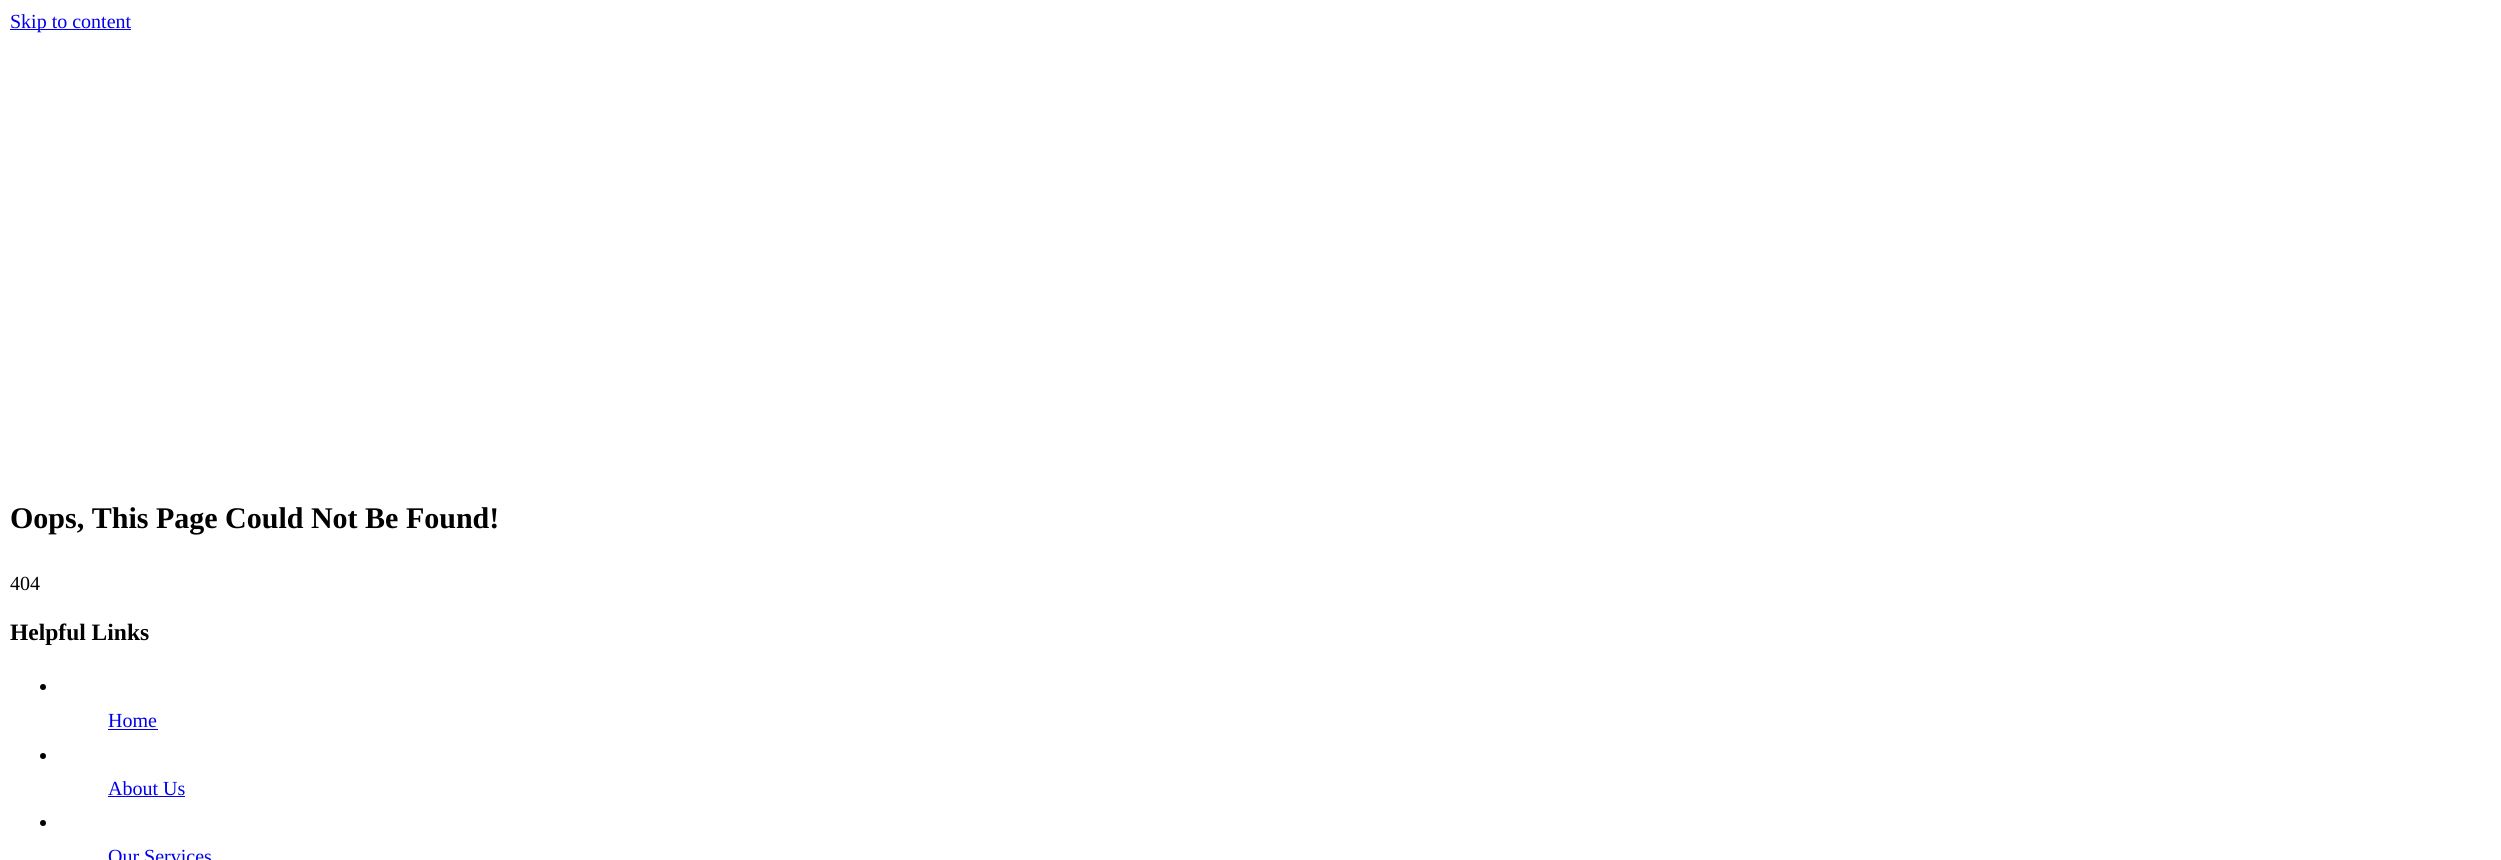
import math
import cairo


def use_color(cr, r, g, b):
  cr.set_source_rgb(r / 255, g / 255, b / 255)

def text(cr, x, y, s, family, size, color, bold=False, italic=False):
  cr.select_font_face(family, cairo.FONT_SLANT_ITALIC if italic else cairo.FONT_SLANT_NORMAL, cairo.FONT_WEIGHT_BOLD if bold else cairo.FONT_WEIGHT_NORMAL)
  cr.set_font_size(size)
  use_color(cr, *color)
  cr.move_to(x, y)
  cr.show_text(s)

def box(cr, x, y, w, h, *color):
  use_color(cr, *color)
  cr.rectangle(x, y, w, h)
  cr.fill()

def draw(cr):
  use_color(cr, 255, 255, 255)
  cr.paint()
  box(cr, 10, 29, 121, 1, 0, 0, 238)
  use_color(cr, 0, 0, 0)
  cr.arc(43, 687, 3, 0, 2 * math.pi)
  cr.fill()
  box(cr, 108, 729, 50, 1, 0, 0, 238)
  use_color(cr, 0, 0, 0)
  cr.arc(43, 756, 3, 0, 2 * math.pi)
  cr.fill()
  box(cr, 108, 796, 77, 1, 0, 0, 238)
  use_color(cr, 0, 0, 0)
  cr.arc(43, 823, 3, 0, 2 * math.pi)
  cr.fill()
  text(cr, 10, 28, "Skip to content", "Liberation Serif", 20, (0, 0, 238))
  text(cr, 10, 528, "Oops, This Page Could Not Be Found!", "Liberation Serif", 30, (0, 0, 0), bold=True)
  text(cr, 10, 590, "404", "Liberation Serif", 20, (0, 0, 0))
  text(cr, 10, 640, "Helpful Links", "Liberation Serif", 23.5, (0, 0, 0), bold=True)
  text(cr, 108, 727, "Home", "Liberation Serif", 20, (0, 0, 238))
  text(cr, 108, 795, "About Us", "Liberation Serif", 20, (0, 0, 238))
  text(cr, 108, 863, "Our Services", "Liberation Serif", 20, (0, 0, 238))


surface = cairo.ImageSurface(cairo.FORMAT_RGB24, 2501, 860)
cr = cairo.Context(surface)
options = cairo.FontOptions()
options.set_hint_metrics(cairo.HINT_METRICS_OFF)
options.set_hint_style(cairo.HINT_STYLE_NONE)
cr.set_font_options(options)
cr.set_miter_limit(4)
draw(cr)
surface.write_to_png("out.png")
